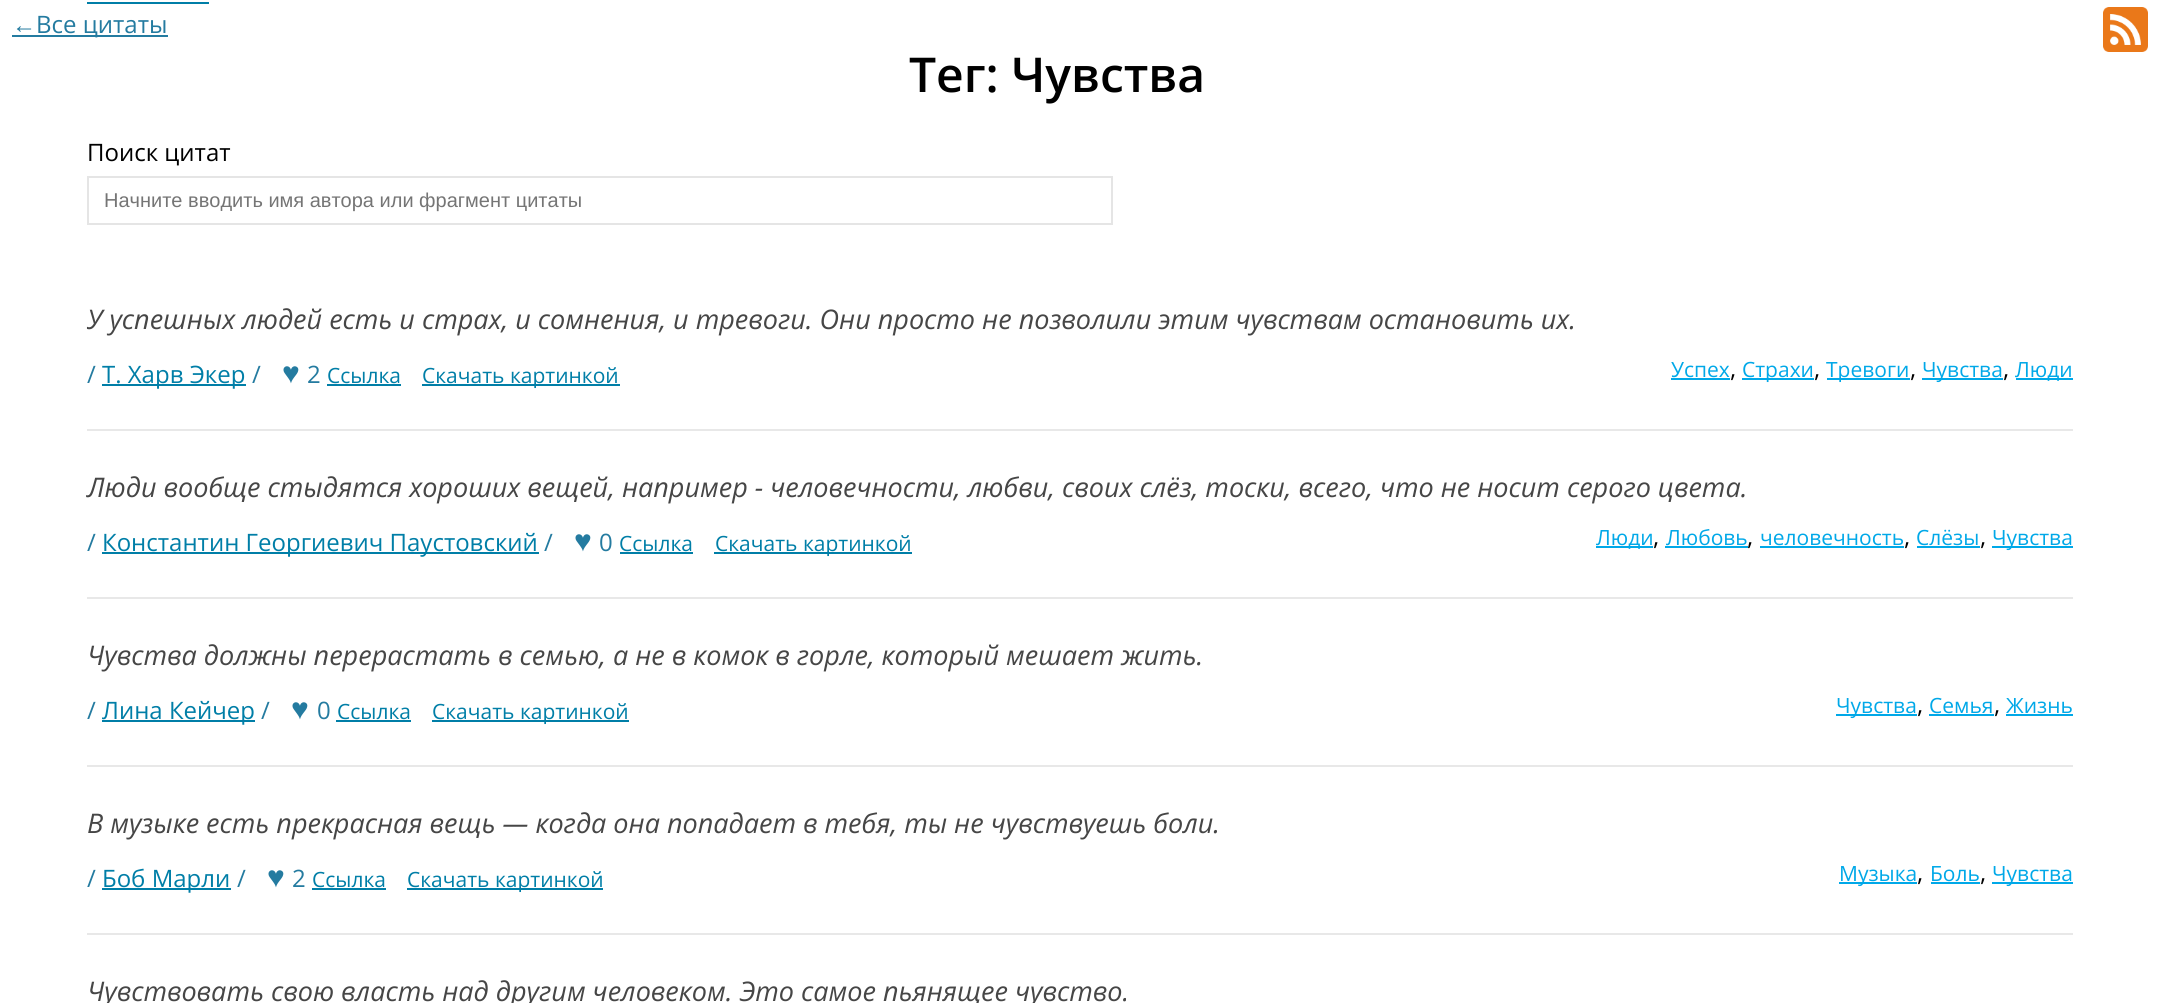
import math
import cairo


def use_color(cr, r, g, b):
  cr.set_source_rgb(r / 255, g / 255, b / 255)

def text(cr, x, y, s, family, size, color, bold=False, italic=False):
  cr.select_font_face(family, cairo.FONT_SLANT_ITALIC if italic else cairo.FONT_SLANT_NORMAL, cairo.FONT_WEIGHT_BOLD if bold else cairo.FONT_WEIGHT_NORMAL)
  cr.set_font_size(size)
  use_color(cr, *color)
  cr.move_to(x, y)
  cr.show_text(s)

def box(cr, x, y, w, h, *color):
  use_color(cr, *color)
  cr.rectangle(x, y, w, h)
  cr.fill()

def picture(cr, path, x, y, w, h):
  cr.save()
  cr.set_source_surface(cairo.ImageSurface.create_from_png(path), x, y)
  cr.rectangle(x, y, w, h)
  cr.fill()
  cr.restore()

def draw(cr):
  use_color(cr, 255, 255, 255)
  cr.paint()
  box(cr, 87, 2, 122, 2, 0, 126, 167)
  box(cr, 12, 35, 156, 2, 36, 123, 160)
  picture(cr, "img_01.png", 2103, 7, 45, 45)
  cr.rectangle(88, 177, 1024, 47)
  use_color(cr, 229, 229, 229)
  cr.stroke()
  box(cr, 102, 384, 144, 2, 0, 126, 167)
  box(cr, 327, 384, 74, 2, 0, 126, 167)
  box(cr, 422, 384, 198, 2, 0, 126, 167)
  box(cr, 1671, 378, 59, 2, 0, 168, 232)
  box(cr, 1742, 378, 72, 2, 0, 168, 232)
  box(cr, 1827, 378, 83, 2, 0, 168, 232)
  box(cr, 1922, 378, 81, 2, 0, 168, 232)
  box(cr, 2016, 378, 57, 2, 0, 168, 232)
  box(cr, 87, 429, 1986, 2, 232, 232, 232)
  box(cr, 102, 552, 437, 2, 0, 126, 167)
  box(cr, 620, 552, 73, 2, 0, 126, 167)
  box(cr, 714, 552, 198, 2, 0, 126, 167)
  box(cr, 1596, 546, 57, 2, 0, 168, 232)
  box(cr, 1665, 546, 83, 2, 0, 168, 232)
  box(cr, 1760, 546, 144, 2, 0, 168, 232)
  box(cr, 1917, 546, 63, 2, 0, 168, 232)
  box(cr, 1992, 546, 81, 2, 0, 168, 232)
  box(cr, 87, 597, 1986, 2, 232, 232, 232)
  box(cr, 102, 720, 153, 2, 0, 126, 167)
  box(cr, 336, 720, 75, 2, 0, 126, 167)
  box(cr, 432, 720, 197, 2, 0, 126, 167)
  box(cr, 1836, 714, 81, 2, 0, 168, 232)
  box(cr, 1929, 714, 65, 2, 0, 168, 232)
  box(cr, 2006, 714, 67, 2, 0, 168, 232)
  box(cr, 87, 765, 1986, 2, 232, 232, 232)
  box(cr, 102, 888, 129, 2, 0, 126, 167)
  box(cr, 312, 888, 74, 2, 0, 126, 167)
  box(cr, 407, 888, 196, 2, 0, 126, 167)
  box(cr, 1839, 882, 78, 2, 0, 168, 232)
  box(cr, 1931, 882, 49, 2, 0, 168, 232)
  box(cr, 1992, 882, 81, 2, 0, 168, 232)
  box(cr, 87, 933, 1986, 2, 232, 232, 232)
  text(cr, 12, 33, "←", "Liberation Sans", 24, (36, 123, 160))
  text(cr, 36, 33, "Все цитаты", "Open Sans", 24, (36, 123, 160))
  text(cr, 909, 92, "Тег: Чувства", "Open Sans SemiBold", 48, (0, 0, 0))
  text(cr, 87, 161, "Поиск цитат", "Open Sans", 24, (0, 0, 0))
  text(cr, 104, 207, "Начните вводить имя автора или фрагмент цитаты", "Liberation Sans", 20, (117, 117, 117))
  text(cr, 87, 329, "У успешных людей есть и страх, и сомнения, и тревоги. Они просто не позволили этим чувствам остановить их.", "Open Sans", 27, (70, 70, 70), italic=True)
  text(cr, 87, 383, "/", "Open Sans", 24, (36, 123, 160))
  text(cr, 102, 383, "Т. Харв Экер", "Open Sans", 24, (0, 126, 167))
  text(cr, 252, 383, "/", "Open Sans", 24, (36, 123, 160))
  text(cr, 282, 383, "♥", "Liberation Sans", 30, (36, 123, 160))
  text(cr, 307, 383, "2", "Open Sans", 24, (36, 123, 160))
  text(cr, 327, 383, "Ссылка", "Open Sans", 21, (0, 126, 167))
  text(cr, 422, 383, "Скачать картинкой", "Open Sans", 21, (0, 126, 167))
  text(cr, 1671, 377, "Успех", "Open Sans", 21, (0, 168, 232))
  text(cr, 1730, 377, ",", "Open Sans", 24, (0, 0, 0))
  text(cr, 1742, 377, "Страхи", "Open Sans", 21, (0, 168, 232))
  text(cr, 1814, 377, ",", "Open Sans", 24, (0, 0, 0))
  text(cr, 1826, 377, "Тревоги", "Open Sans", 21, (0, 168, 232))
  text(cr, 1910, 377, ",", "Open Sans", 24, (0, 0, 0))
  text(cr, 1922, 377, "Чувства", "Open Sans", 21, (0, 168, 232))
  text(cr, 2003, 377, ",", "Open Sans", 24, (0, 0, 0))
  text(cr, 2015, 377, "Люди", "Open Sans", 21, (0, 168, 232))
  text(cr, 87, 497, "Люди вообще стыдятся хороших вещей, например - человечности, любви, своих слёз, тоски, всего, что не носит серого цвета.", "Open Sans", 27, (70, 70, 70), italic=True)
  text(cr, 87, 551, "/", "Open Sans", 24, (36, 123, 160))
  text(cr, 102, 551, "Константин Георгиевич Паустовский", "Open Sans", 24, (0, 126, 167))
  text(cr, 544, 551, "/", "Open Sans", 24, (36, 123, 160))
  text(cr, 574, 551, "♥", "Liberation Sans", 30, (36, 123, 160))
  text(cr, 599, 551, "0", "Open Sans", 24, (36, 123, 160))
  text(cr, 619, 551, "Ссылка", "Open Sans", 21, (0, 126, 167))
  text(cr, 715, 551, "Скачать картинкой", "Open Sans", 21, (0, 126, 167))
  text(cr, 1596, 545, "Люди", "Open Sans", 21, (0, 168, 232))
  text(cr, 1653, 545, ",", "Open Sans", 24, (0, 0, 0))
  text(cr, 1666, 545, "Любовь", "Open Sans", 21, (0, 168, 232))
  text(cr, 1747, 545, ",", "Open Sans", 24, (0, 0, 0))
  text(cr, 1760, 545, "человечность", "Open Sans", 21, (0, 168, 232))
  text(cr, 1904, 545, ",", "Open Sans", 24, (0, 0, 0))
  text(cr, 1916, 545, "Слёзы", "Open Sans", 21, (0, 168, 232))
  text(cr, 1980, 545, ",", "Open Sans", 24, (0, 0, 0))
  text(cr, 1992, 545, "Чувства", "Open Sans", 21, (0, 168, 232))
  text(cr, 87, 665, "Чувства должны перерастать в семью, а не в комок в горле, который мешает жить.", "Open Sans", 27, (70, 70, 70), italic=True)
  text(cr, 87, 719, "/", "Open Sans", 24, (36, 123, 160))
  text(cr, 102, 719, "Лина Кейчер", "Open Sans", 24, (0, 126, 167))
  text(cr, 261, 719, "/", "Open Sans", 24, (36, 123, 160))
  text(cr, 291, 719, "♥", "Liberation Sans", 30, (36, 123, 160))
  text(cr, 317, 719, "0", "Open Sans", 24, (36, 123, 160))
  text(cr, 337, 719, "Ссылка", "Open Sans", 21, (0, 126, 167))
  text(cr, 432, 719, "Скачать картинкой", "Open Sans", 21, (0, 126, 167))
  text(cr, 1836, 713, "Чувства", "Open Sans", 21, (0, 168, 232))
  text(cr, 1917, 713, ",", "Open Sans", 24, (0, 0, 0))
  text(cr, 1929, 713, "Семья", "Open Sans", 21, (0, 168, 232))
  text(cr, 1994, 713, ",", "Open Sans", 24, (0, 0, 0))
  text(cr, 2006, 713, "Жизнь", "Open Sans", 21, (0, 168, 232))
  text(cr, 87, 833, "В музыке есть прекрасная вещь — когда она попадает в тебя, ты не чувствуешь боли.", "Open Sans", 27, (70, 70, 70), italic=True)
  text(cr, 87, 887, "/", "Open Sans", 24, (36, 123, 160))
  text(cr, 102, 887, "Боб Марли", "Open Sans", 24, (0, 126, 167))
  text(cr, 237, 887, "/", "Open Sans", 24, (36, 123, 160))
  text(cr, 267, 887, "♥", "Liberation Sans", 30, (36, 123, 160))
  text(cr, 292, 887, "2", "Open Sans", 24, (36, 123, 160))
  text(cr, 312, 887, "Ссылка", "Open Sans", 21, (0, 126, 167))
  text(cr, 407, 887, "Скачать картинкой", "Open Sans", 21, (0, 126, 167))
  text(cr, 1839, 881, "Музыка", "Open Sans", 21, (0, 168, 232))
  text(cr, 1917, 881, ",", "Open Sans", 24, (0, 0, 0))
  text(cr, 1930, 881, "Боль", "Open Sans", 21, (0, 168, 232))
  text(cr, 1980, 881, ",", "Open Sans", 24, (0, 0, 0))
  text(cr, 1992, 881, "Чувства", "Open Sans", 21, (0, 168, 232))
  text(cr, 87, 1001, "Чувствовать свою власть над другим человеком. Это самое пьянящее чувство.", "Open Sans", 27, (70, 70, 70), italic=True)


surface = cairo.ImageSurface(cairo.FORMAT_RGB24, 2159, 1003)
cr = cairo.Context(surface)
options = cairo.FontOptions()
options.set_hint_metrics(cairo.HINT_METRICS_OFF)
options.set_hint_style(cairo.HINT_STYLE_NONE)
cr.set_font_options(options)
cr.set_miter_limit(4)
draw(cr)
surface.write_to_png("out.png")
